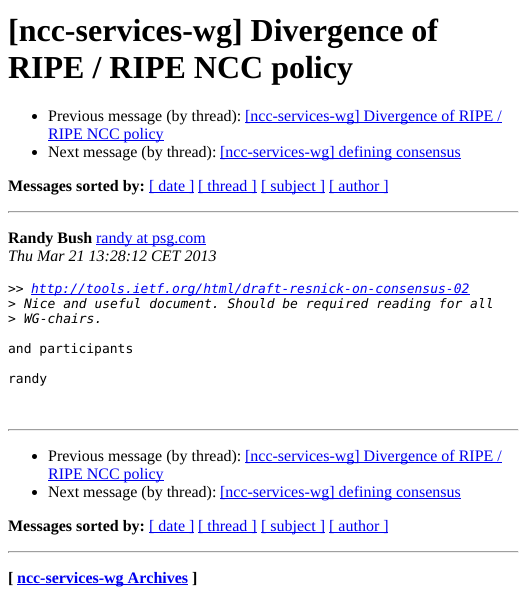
import math
import cairo


def use_color(cr, r, g, b):
  cr.set_source_rgb(r / 255, g / 255, b / 255)

def text(cr, x, y, s, family, size, color, bold=False, italic=False):
  cr.select_font_face(family, cairo.FONT_SLANT_ITALIC if italic else cairo.FONT_SLANT_NORMAL, cairo.FONT_WEIGHT_BOLD if bold else cairo.FONT_WEIGHT_NORMAL)
  cr.set_font_size(size)
  use_color(cr, *color)
  cr.move_to(x, y)
  cr.show_text(s)

def box(cr, x, y, w, h, *color):
  use_color(cr, *color)
  cr.rectangle(x, y, w, h)
  cr.fill()

def draw(cr):
  use_color(cr, 255, 255, 255)
  cr.paint()
  use_color(cr, 0, 0, 0)
  cr.arc(34.5, 116.5, 2.5, 0, 2 * math.pi)
  cr.fill()
  box(cr, 245, 122, 257, 1, 0, 0, 238)
  box(cr, 48, 140, 116, 1, 0, 0, 238)
  use_color(cr, 0, 0, 0)
  cr.arc(34.5, 152.5, 2.5, 0, 2 * math.pi)
  cr.fill()
  box(cr, 220, 158, 241, 1, 0, 0, 238)
  box(cr, 149, 192, 45, 1, 0, 0, 238)
  box(cr, 198, 192, 59, 1, 0, 0, 238)
  box(cr, 261, 192, 64, 1, 0, 0, 238)
  box(cr, 329, 192, 59, 1, 0, 0, 238)
  box(cr, 8, 211, 511, 1, 159, 159, 159)
  box(cr, 518, 211, 1, 2, 238, 238, 238)
  box(cr, 8, 212, 511, 1, 238, 238, 238)
  box(cr, 8, 211, 1, 2, 159, 159, 159)
  box(cr, 96, 244, 110, 1, 0, 0, 238)
  box(cr, 31, 294, 439, 1, 0, 0, 238)
  box(cr, 8, 429, 511, 1, 159, 159, 159)
  box(cr, 518, 429, 1, 2, 238, 238, 238)
  box(cr, 8, 430, 511, 1, 238, 238, 238)
  box(cr, 8, 429, 1, 2, 159, 159, 159)
  use_color(cr, 0, 0, 0)
  cr.arc(34.5, 456.5, 2.5, 0, 2 * math.pi)
  cr.fill()
  box(cr, 245, 462, 257, 1, 0, 0, 238)
  box(cr, 48, 480, 116, 1, 0, 0, 238)
  use_color(cr, 0, 0, 0)
  cr.arc(34.5, 492.5, 2.5, 0, 2 * math.pi)
  cr.fill()
  box(cr, 220, 498, 241, 1, 0, 0, 238)
  box(cr, 149, 532, 45, 1, 0, 0, 238)
  box(cr, 198, 532, 59, 1, 0, 0, 238)
  box(cr, 261, 532, 64, 1, 0, 0, 238)
  box(cr, 329, 532, 59, 1, 0, 0, 238)
  box(cr, 8, 551, 511, 1, 159, 159, 159)
  box(cr, 518, 551, 1, 2, 238, 238, 238)
  box(cr, 8, 552, 511, 1, 238, 238, 238)
  box(cr, 8, 551, 1, 2, 159, 159, 159)
  box(cr, 17, 584, 171, 1, 0, 0, 238)
  text(cr, 8, 41, "[ncc-services-wg] Divergence of", "Liberation Serif", 32, (0, 0, 0), bold=True)
  text(cr, 8, 78, "RIPE / RIPE NCC policy", "Liberation Serif", 32, (0, 0, 0), bold=True)
  text(cr, 48, 121, "Previous message (by thread):", "Liberation Serif", 16, (0, 0, 0))
  text(cr, 245, 121, "[ncc-services-wg] Divergence of RIPE /", "Liberation Serif", 16, (0, 0, 238))
  text(cr, 48, 139, "RIPE NCC policy", "Liberation Serif", 16, (0, 0, 238))
  text(cr, 48, 157, "Next message (by thread):", "Liberation Serif", 16, (0, 0, 0))
  text(cr, 220, 157, "[ncc-services-wg] defining consensus", "Liberation Serif", 16, (0, 0, 238))
  text(cr, 8, 191, "Messages sorted by:", "Liberation Serif", 16, (0, 0, 0), bold=True)
  text(cr, 149, 191, "[ date ]", "Liberation Serif", 16, (0, 0, 238))
  text(cr, 198, 191, "[ thread ]", "Liberation Serif", 16, (0, 0, 238))
  text(cr, 261, 191, "[ subject ]", "Liberation Serif", 16, (0, 0, 238))
  text(cr, 329, 191, "[ author ]", "Liberation Serif", 16, (0, 0, 238))
  text(cr, 8, 243, "Randy Bush", "Liberation Serif", 16, (0, 0, 0), bold=True)
  text(cr, 96, 243, "randy at psg.com", "Liberation Serif", 16, (0, 0, 238))
  text(cr, 8, 261, "Thu Mar 21 13:28:12 CET 2013", "Liberation Serif", 16, (0, 0, 0), italic=True)
  text(cr, 8, 293, ">>", "DejaVu Sans Mono", 13, (0, 0, 0))
  text(cr, 31, 293, "http://tools.ietf.org/html/draft-resnick-on-consensus-02", "DejaVu Sans Mono", 13, (0, 0, 238), italic=True)
  text(cr, 8, 308, ">", "DejaVu Sans Mono", 13, (0, 0, 0))
  text(cr, 24, 308, "Nice and useful document. Should be required reading for all", "DejaVu Sans Mono", 13, (0, 0, 0), italic=True)
  text(cr, 8, 323, ">", "DejaVu Sans Mono", 13, (0, 0, 0))
  text(cr, 24, 323, "WG-chairs.", "DejaVu Sans Mono", 13, (0, 0, 0), italic=True)
  text(cr, 8, 353, "and participants", "DejaVu Sans Mono", 13, (0, 0, 0))
  text(cr, 8, 383, "randy", "DejaVu Sans Mono", 13, (0, 0, 0))
  text(cr, 48, 461, "Previous message (by thread):", "Liberation Serif", 16, (0, 0, 0))
  text(cr, 245, 461, "[ncc-services-wg] Divergence of RIPE /", "Liberation Serif", 16, (0, 0, 238))
  text(cr, 48, 479, "RIPE NCC policy", "Liberation Serif", 16, (0, 0, 238))
  text(cr, 48, 497, "Next message (by thread):", "Liberation Serif", 16, (0, 0, 0))
  text(cr, 220, 497, "[ncc-services-wg] defining consensus", "Liberation Serif", 16, (0, 0, 238))
  text(cr, 8, 531, "Messages sorted by:", "Liberation Serif", 16, (0, 0, 0), bold=True)
  text(cr, 149, 531, "[ date ]", "Liberation Serif", 16, (0, 0, 238))
  text(cr, 198, 531, "[ thread ]", "Liberation Serif", 16, (0, 0, 238))
  text(cr, 261, 531, "[ subject ]", "Liberation Serif", 16, (0, 0, 238))
  text(cr, 329, 531, "[ author ]", "Liberation Serif", 16, (0, 0, 238))
  text(cr, 8, 583, "[", "Liberation Serif", 16, (0, 0, 0), bold=True)
  text(cr, 17, 583, "ncc-services-wg Archives", "Liberation Serif", 16, (0, 0, 238), bold=True)
  text(cr, 192, 583, "]", "Liberation Serif", 16, (0, 0, 0), bold=True)


surface = cairo.ImageSurface(cairo.FORMAT_RGB24, 527, 592)
cr = cairo.Context(surface)
options = cairo.FontOptions()
options.set_hint_metrics(cairo.HINT_METRICS_OFF)
options.set_hint_style(cairo.HINT_STYLE_NONE)
cr.set_font_options(options)
cr.set_miter_limit(4)
draw(cr)
surface.write_to_png("out.png")
